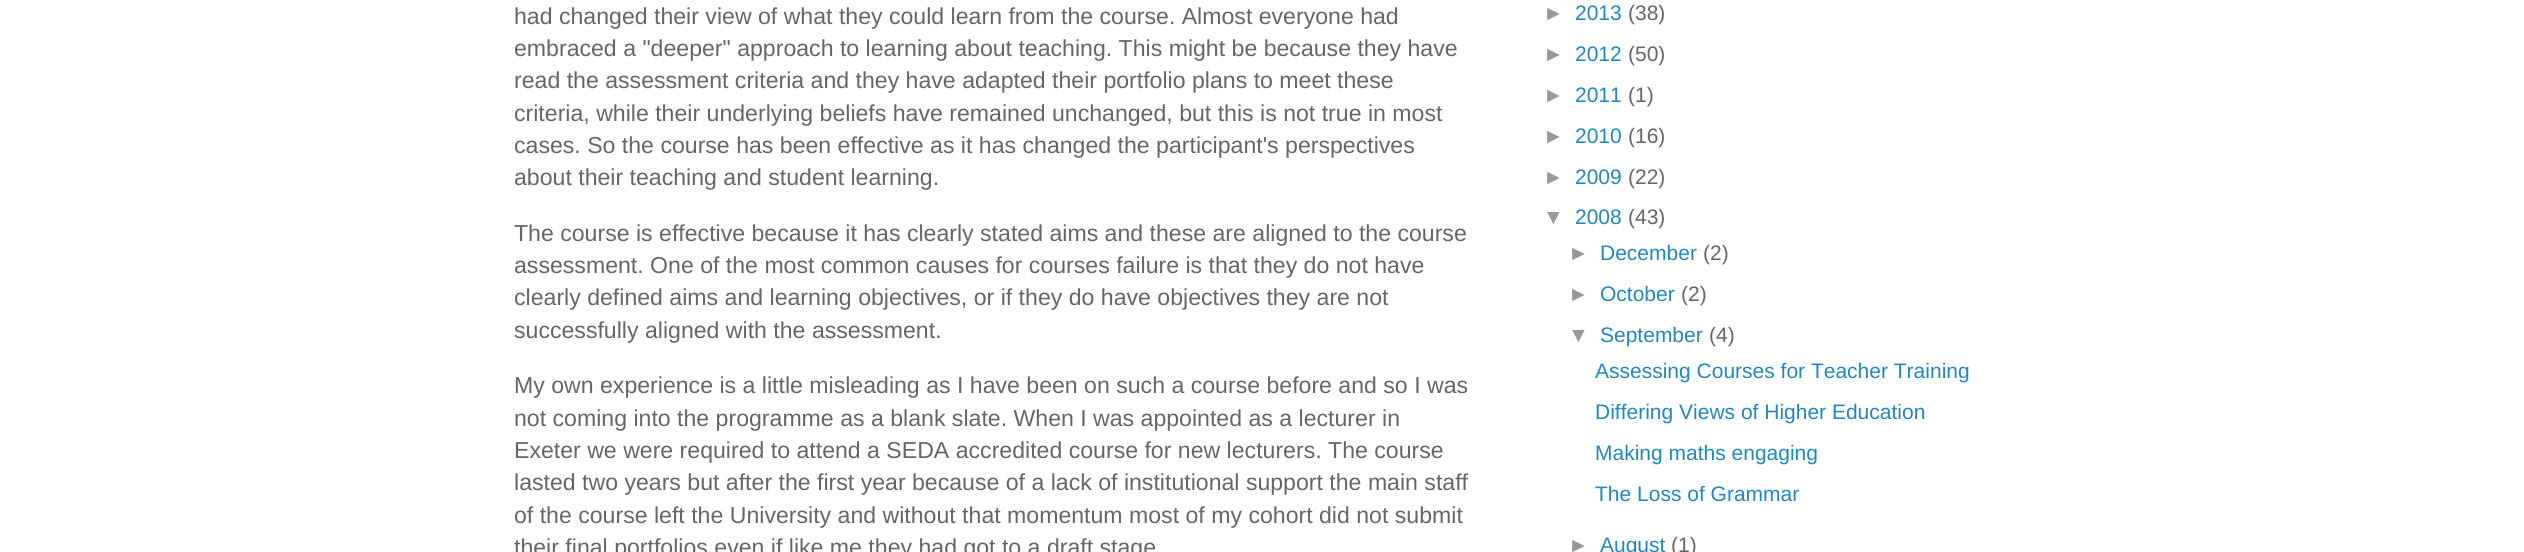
import math
import cairo


def use_color(cr, r, g, b):
  cr.set_source_rgb(r / 255, g / 255, b / 255)

def text(cr, x, y, s, family, size, color, bold=False, italic=False):
  cr.select_font_face(family, cairo.FONT_SLANT_ITALIC if italic else cairo.FONT_SLANT_NORMAL, cairo.FONT_WEIGHT_BOLD if bold else cairo.FONT_WEIGHT_NORMAL)
  cr.set_font_size(size)
  use_color(cr, *color)
  cr.move_to(x, y)
  cr.show_text(s)

def draw(cr):
  use_color(cr, 255, 255, 255)
  cr.paint()
  text(cr, 514, 24, "had changed their view of what they could learn from the course. Almost everyone had", "Liberation Sans", 23.1, (102, 102, 102))
  text(cr, 514, 56, "embraced a \"deeper\" approach to learning about teaching. This might be because they have", "Liberation Sans", 23.1, (102, 102, 102))
  text(cr, 514, 88, "read the assessment criteria and they have adapted their portfolio plans to meet these", "Liberation Sans", 23.1, (102, 102, 102))
  text(cr, 514, 121, "criteria, while their underlying beliefs have remained unchanged, but this is not true in most", "Liberation Sans", 23.1, (102, 102, 102))
  text(cr, 514, 153, "cases. So the course has been effective as it has changed the participant's perspectives", "Liberation Sans", 23.1, (102, 102, 102))
  text(cr, 514, 185, "about their teaching and student learning.", "Liberation Sans", 23.1, (102, 102, 102))
  text(cr, 514, 241, "The course is effective because it has clearly stated aims and these are aligned to the course", "Liberation Sans", 23.1, (102, 102, 102))
  text(cr, 514, 273, "assessment. One of the most common causes for courses failure is that they do not have", "Liberation Sans", 23.1, (102, 102, 102))
  text(cr, 514, 305, "clearly defined aims and learning objectives, or if they do have objectives they are not", "Liberation Sans", 23.1, (102, 102, 102))
  text(cr, 514, 338, "successfully aligned with the assessment.", "Liberation Sans", 23.1, (102, 102, 102))
  text(cr, 514, 393, "My own experience is a little misleading as I have been on such a course before and so I was", "Liberation Sans", 23.1, (102, 102, 102))
  text(cr, 514, 426, "not coming into the programme as a blank slate. When I was appointed as a lecturer in", "Liberation Sans", 23.1, (102, 102, 102))
  text(cr, 514, 458, "Exeter we were required to attend a SEDA accredited course for new lecturers. The course", "Liberation Sans", 23.1, (102, 102, 102))
  text(cr, 514, 490, "lasted two years but after the first year because of a lack of institutional support the main staff", "Liberation Sans", 23.1, (102, 102, 102))
  text(cr, 514, 523, "of the course left the University and without that momentum most of my cohort did not submit", "Liberation Sans", 23.1, (102, 102, 102))
  text(cr, 514, 555, "their final portfolios even if like me they had got to a draft stage", "Liberation Sans", 23.1, (102, 102, 102))
  text(cr, 1543, 20, "►", "Liberation Sans", 21, (153, 153, 153))
  text(cr, 1575, 20, "2013", "Liberation Sans", 21, (34, 136, 187))
  text(cr, 1628, 20, "(38)", "Liberation Sans", 21, (102, 102, 102))
  text(cr, 1543, 61, "►", "Liberation Sans", 21, (153, 153, 153))
  text(cr, 1575, 61, "2012", "Liberation Sans", 21, (34, 136, 187))
  text(cr, 1628, 61, "(50)", "Liberation Sans", 21, (102, 102, 102))
  text(cr, 1543, 102, "►", "Liberation Sans", 21, (153, 153, 153))
  text(cr, 1575, 102, "2011", "Liberation Sans", 21, (34, 136, 187))
  text(cr, 1628, 102, "(1)", "Liberation Sans", 21, (102, 102, 102))
  text(cr, 1543, 143, "►", "Liberation Sans", 21, (153, 153, 153))
  text(cr, 1575, 143, "2010", "Liberation Sans", 21, (34, 136, 187))
  text(cr, 1628, 143, "(16)", "Liberation Sans", 21, (102, 102, 102))
  text(cr, 1543, 184, "►", "Liberation Sans", 21, (153, 153, 153))
  text(cr, 1575, 184, "2009", "Liberation Sans", 21, (34, 136, 187))
  text(cr, 1628, 184, "(22)", "Liberation Sans", 21, (102, 102, 102))
  text(cr, 1543, 224, "▼", "Liberation Sans", 21, (153, 153, 153))
  text(cr, 1575, 224, "2008", "Liberation Sans", 21, (34, 136, 187))
  text(cr, 1628, 224, "(43)", "Liberation Sans", 21, (102, 102, 102))
  text(cr, 1568, 260, "►", "Liberation Sans", 21, (153, 153, 153))
  text(cr, 1600, 260, "December", "Liberation Sans", 21, (34, 136, 187))
  text(cr, 1703, 260, "(2)", "Liberation Sans", 21, (102, 102, 102))
  text(cr, 1568, 301, "►", "Liberation Sans", 21, (153, 153, 153))
  text(cr, 1600, 301, "October", "Liberation Sans", 21, (34, 136, 187))
  text(cr, 1681, 301, "(2)", "Liberation Sans", 21, (102, 102, 102))
  text(cr, 1568, 342, "▼", "Liberation Sans", 21, (153, 153, 153))
  text(cr, 1600, 342, "September", "Liberation Sans", 21, (34, 136, 187))
  text(cr, 1709, 342, "(4)", "Liberation Sans", 21, (102, 102, 102))
  text(cr, 1595, 378, "Assessing Courses for Teacher Training", "Liberation Sans", 21, (34, 136, 187))
  text(cr, 1595, 419, "Differing Views of Higher Education", "Liberation Sans", 21, (34, 136, 187))
  text(cr, 1595, 460, "Making maths engaging", "Liberation Sans", 21, (34, 136, 187))
  text(cr, 1595, 501, "The Loss of Grammar", "Liberation Sans", 21, (34, 136, 187))
  text(cr, 1568, 552, "►", "Liberation Sans", 21, (153, 153, 153))
  text(cr, 1600, 552, "August", "Liberation Sans", 21, (34, 136, 187))
  text(cr, 1671, 552, "(1)", "Liberation Sans", 21, (102, 102, 102))


surface = cairo.ImageSurface(cairo.FORMAT_RGB24, 2524, 552)
cr = cairo.Context(surface)
options = cairo.FontOptions()
options.set_hint_metrics(cairo.HINT_METRICS_OFF)
options.set_hint_style(cairo.HINT_STYLE_NONE)
cr.set_font_options(options)
cr.set_miter_limit(4)
draw(cr)
surface.write_to_png("out.png")
